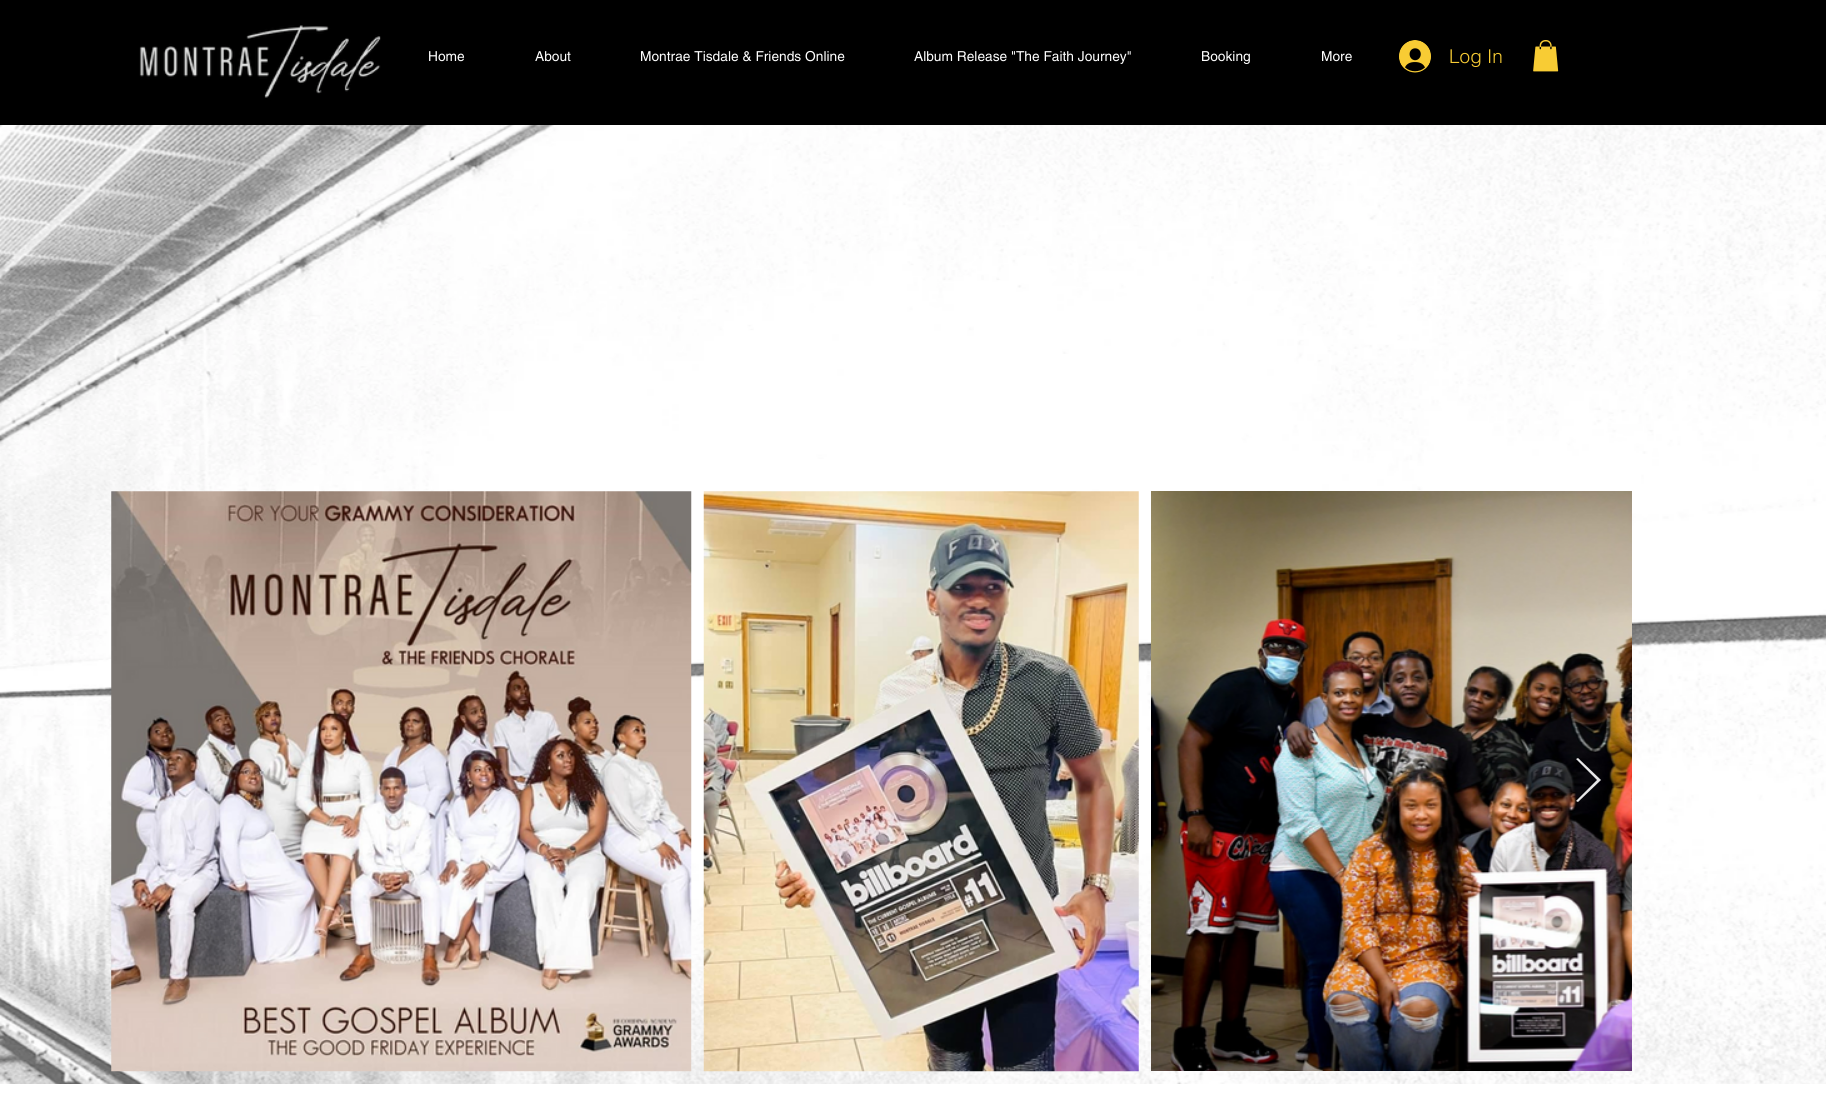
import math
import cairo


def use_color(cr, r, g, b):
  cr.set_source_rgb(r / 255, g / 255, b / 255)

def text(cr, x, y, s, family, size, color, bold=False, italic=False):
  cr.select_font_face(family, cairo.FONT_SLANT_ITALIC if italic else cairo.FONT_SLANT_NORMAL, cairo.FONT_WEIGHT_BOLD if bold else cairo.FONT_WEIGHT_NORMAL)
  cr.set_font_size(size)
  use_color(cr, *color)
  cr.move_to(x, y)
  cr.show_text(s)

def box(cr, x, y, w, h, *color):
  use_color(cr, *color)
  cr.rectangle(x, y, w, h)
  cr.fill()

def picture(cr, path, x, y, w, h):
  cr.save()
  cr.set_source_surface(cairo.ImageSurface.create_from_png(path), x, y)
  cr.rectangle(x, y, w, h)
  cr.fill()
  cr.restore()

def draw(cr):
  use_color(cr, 255, 255, 255)
  cr.paint()
  box(cr, 0, 0, 1826, 125, 0, 0, 0)
  picture(cr, "img_01.png", 139, 25, 242, 73)
  picture(cr, "img_02.png", 1399, 40, 32, 33)
  picture(cr, "img_03.png", 1533, 40, 26, 32)
  picture(cr, "img_07.png", 0, 125, 1826, 959)
  picture(cr, "img_04.png", 111, 491, 581, 581)
  picture(cr, "img_05.png", 703, 491, 436, 581)
  picture(cr, "img_06.png", 1151, 491, 481, 580)
  cr.set_source_rgba(1, 1, 1, 0.9)
  cr.new_path()
  cr.move_to(1576, 759)
  cr.line_to(1578, 758)
  cr.line_to(1601, 780)
  cr.line_to(1578, 802)
  cr.line_to(1576, 801)
  cr.line_to(1597, 780)
  cr.close_path()
  cr.fill()
  text(cr, 428, 61, "Home", "helvetica", 13.75, (255, 255, 255))
  text(cr, 535, 61, "About", "helvetica", 13.75, (255, 255, 255))
  text(cr, 640, 61, "Montrae Tisdale & Friends Online", "helvetica", 13.75, (255, 255, 255))
  text(cr, 914, 61, "Album Release \"The Faith Journey\"", "helvetica", 13.75, (255, 255, 255))
  text(cr, 1201, 61, "Booking", "helvetica", 13.75, (255, 255, 255))
  text(cr, 1321, 61, "More", "helvetica", 13.75, (255, 255, 255))
  text(cr, 1449, 63, "Log In", "helvetica Light", 19, (248, 204, 52))


surface = cairo.ImageSurface(cairo.FORMAT_RGB24, 1826, 1112)
cr = cairo.Context(surface)
options = cairo.FontOptions()
options.set_hint_metrics(cairo.HINT_METRICS_OFF)
options.set_hint_style(cairo.HINT_STYLE_NONE)
cr.set_font_options(options)
cr.set_miter_limit(4)
draw(cr)
surface.write_to_png("out.png")
